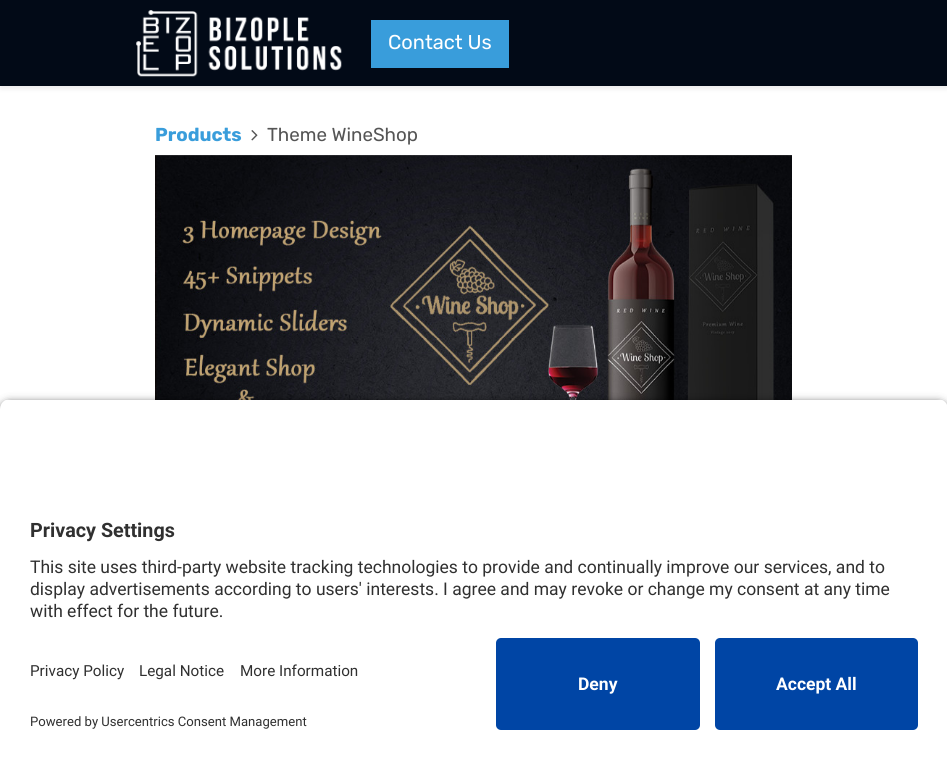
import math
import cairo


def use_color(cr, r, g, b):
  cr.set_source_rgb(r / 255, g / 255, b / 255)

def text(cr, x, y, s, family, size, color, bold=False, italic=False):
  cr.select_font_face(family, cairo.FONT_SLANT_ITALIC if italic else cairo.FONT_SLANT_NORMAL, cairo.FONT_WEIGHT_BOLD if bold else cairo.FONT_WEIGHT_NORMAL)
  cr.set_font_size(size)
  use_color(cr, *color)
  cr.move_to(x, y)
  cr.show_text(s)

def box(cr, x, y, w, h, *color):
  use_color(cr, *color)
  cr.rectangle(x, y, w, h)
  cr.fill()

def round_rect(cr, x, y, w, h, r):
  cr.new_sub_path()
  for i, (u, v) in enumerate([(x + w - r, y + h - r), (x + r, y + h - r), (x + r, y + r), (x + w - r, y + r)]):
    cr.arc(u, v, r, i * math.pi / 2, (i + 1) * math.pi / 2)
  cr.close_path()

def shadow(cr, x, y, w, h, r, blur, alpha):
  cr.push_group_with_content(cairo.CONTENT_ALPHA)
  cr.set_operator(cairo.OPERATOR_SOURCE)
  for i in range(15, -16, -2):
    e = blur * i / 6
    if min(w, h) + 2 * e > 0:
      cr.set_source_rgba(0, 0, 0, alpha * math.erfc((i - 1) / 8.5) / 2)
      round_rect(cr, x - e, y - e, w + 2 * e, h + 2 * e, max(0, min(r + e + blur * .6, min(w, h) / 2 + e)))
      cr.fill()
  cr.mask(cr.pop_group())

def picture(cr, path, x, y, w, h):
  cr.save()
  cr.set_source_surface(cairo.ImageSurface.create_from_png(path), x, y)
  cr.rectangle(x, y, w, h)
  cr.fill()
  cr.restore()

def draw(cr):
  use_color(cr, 255, 255, 255)
  cr.paint()
  use_color(cr, 0, 0, 0)
  shadow(cr, 0, 3, 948, 86, 0, 2.5, 0.07)
  box(cr, 0, 0, 947, 86, 2, 10, 23)
  picture(cr, "img_01.png", 136, 10, 206, 67)
  box(cr, 371, 20, 138, 48, 57, 157, 219)
  picture(cr, "img_02.png", 251, 130, 7, 11)
  picture(cr, "img_03.png", 155, 155, 637, 245)
  use_color(cr, 0, 0, 0)
  shadow(cr, 0, 403, 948, 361, 10, 4.5, 0.8)
  cr.save()
  cr.new_path()
  cr.move_to(10, 399)
  cr.line_to(938, 399)
  cr.curve_to(943.5, 399, 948, 403.5, 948, 409)
  cr.line_to(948, 628)
  cr.line_to(0, 628)
  cr.line_to(0, 409)
  cr.curve_to(0, 403.5, 4.5, 399, 10, 399)
  cr.close_path()
  cr.clip()
  box(cr, 0, 400, 947, 228, 255, 255, 255)
  cr.restore()
  box(cr, 0, 628, 947, 131, 255, 255, 255)
  use_color(cr, 0, 69, 165)
  round_rect(cr, 496, 638, 204, 92, 5)
  cr.fill()
  round_rect(cr, 715, 638, 203, 92, 5)
  cr.fill()
  text(cr, 388, 49, "Contact Us", "Rubik", 20, (255, 255, 255))
  text(cr, 155, 141, "Products", "Rubik", 18.75, (57, 157, 219), bold=True)
  text(cr, 267, 141, "Theme WineShop", "Rubik", 18.75, (85, 85, 85))
  text(cr, 30, 537, "Privacy Settings", "Roboto", 19.75, (48, 48, 48), bold=True)
  text(cr, 30, 573, "This site uses third-party website tracking technologies to provide and continually improve our services, and to", "Roboto", 17.5, (48, 48, 48))
  text(cr, 30, 595, "display advertisements according to users' interests. I agree and may revoke or change my consent at any time", "Roboto", 17.5, (48, 48, 48))
  text(cr, 30, 617, "with effect for the future.", "Roboto", 17.5, (48, 48, 48))
  text(cr, 30, 676, "Privacy Policy", "Roboto", 15.25, (48, 48, 48))
  text(cr, 139, 676, "Legal Notice", "Roboto", 15.25, (48, 48, 48))
  text(cr, 240, 676, "More Information", "Roboto", 15.25, (48, 48, 48))
  text(cr, 30, 726, "Powered by Usercentrics Consent Management", "Roboto", 13.1, (48, 48, 48))
  text(cr, 578, 690, "Deny", "Roboto", 17.5, (255, 255, 255), bold=True)
  text(cr, 776, 690, "Accept All", "Roboto", 17.5, (255, 255, 255), bold=True)


surface = cairo.ImageSurface(cairo.FORMAT_RGB24, 947, 759)
cr = cairo.Context(surface)
options = cairo.FontOptions()
options.set_hint_metrics(cairo.HINT_METRICS_OFF)
options.set_hint_style(cairo.HINT_STYLE_NONE)
cr.set_font_options(options)
cr.set_miter_limit(4)
draw(cr)
surface.write_to_png("out.png")
